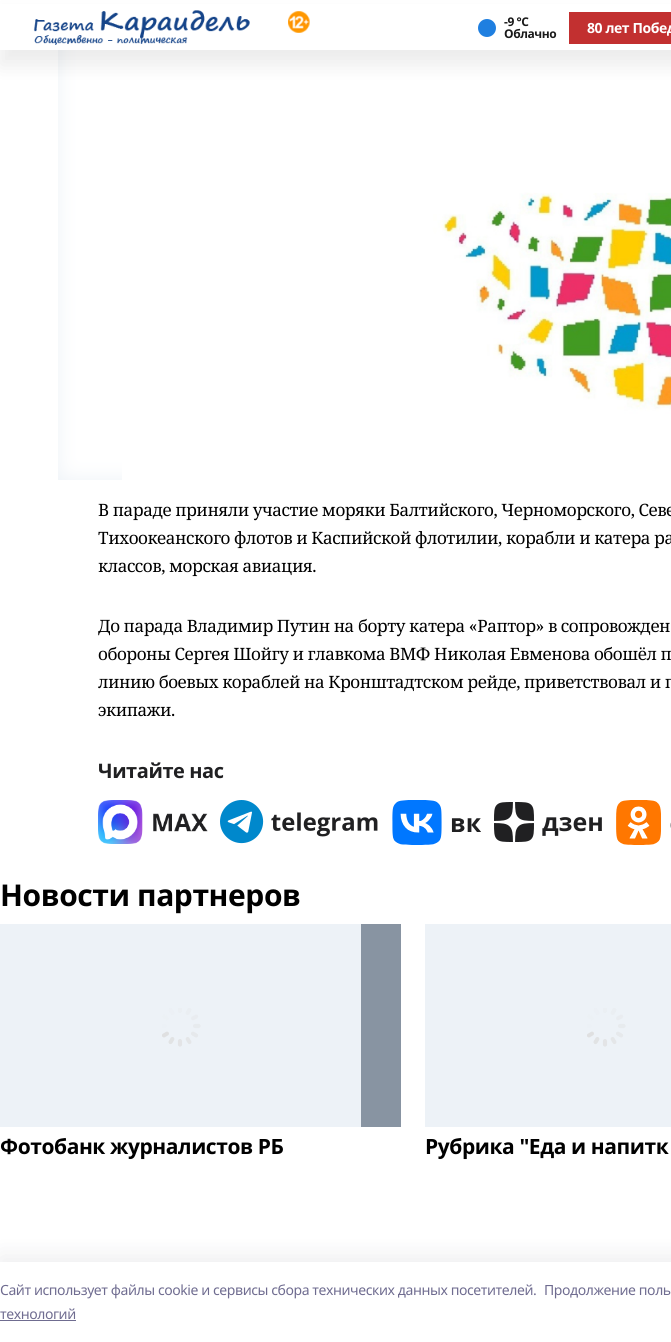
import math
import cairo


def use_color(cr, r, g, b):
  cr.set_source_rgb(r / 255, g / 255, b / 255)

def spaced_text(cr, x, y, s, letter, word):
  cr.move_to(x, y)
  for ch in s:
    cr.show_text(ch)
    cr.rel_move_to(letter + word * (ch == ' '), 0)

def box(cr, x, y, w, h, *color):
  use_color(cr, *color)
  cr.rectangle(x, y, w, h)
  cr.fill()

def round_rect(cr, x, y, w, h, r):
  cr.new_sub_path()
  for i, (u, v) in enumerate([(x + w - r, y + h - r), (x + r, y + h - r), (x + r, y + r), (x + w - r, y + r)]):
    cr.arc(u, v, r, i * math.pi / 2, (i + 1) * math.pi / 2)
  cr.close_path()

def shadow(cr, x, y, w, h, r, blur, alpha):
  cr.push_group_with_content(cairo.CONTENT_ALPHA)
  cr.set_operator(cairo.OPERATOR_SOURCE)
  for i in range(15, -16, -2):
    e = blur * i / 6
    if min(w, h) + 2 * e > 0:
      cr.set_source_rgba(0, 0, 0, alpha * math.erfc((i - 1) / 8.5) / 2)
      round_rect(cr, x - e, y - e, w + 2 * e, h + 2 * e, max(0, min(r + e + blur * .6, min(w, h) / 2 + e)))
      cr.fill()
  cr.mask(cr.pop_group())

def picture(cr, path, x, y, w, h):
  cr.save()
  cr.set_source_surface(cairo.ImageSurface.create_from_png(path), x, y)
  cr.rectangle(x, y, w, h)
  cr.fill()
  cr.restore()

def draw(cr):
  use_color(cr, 255, 255, 255)
  cr.paint()
  box(cr, 58, 50, 64, 430, 237, 242, 247)
  picture(cr, "img_02.png", 58, 50, 64, 430)
  picture(cr, "img_03.png", 122, 50, 549, 430)
  use_color(cr, 0, 0, 0)
  shadow(cr, 0, 15, 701, 50, 0, 10, 0.08)
  box(cr, 0, 4, 671, 46, 255, 255, 255)
  picture(cr, "img_01.png", 33, 10, 277, 35)
  use_color(cr, 31, 127, 224)
  cr.arc(487, 28, 9, 0, 2 * math.pi)
  cr.fill()
  box(cr, 569, 12, 102, 32, 194, 48, 48)
  picture(cr, "img_04.png", 98, 800, 110, 44)
  picture(cr, "img_05.png", 220, 800, 158, 44)
  picture(cr, "img_06.png", 392, 800, 89, 45)
  picture(cr, "img_07.png", 494, 802, 108, 40)
  picture(cr, "img_08.png", 616, 800, 55, 45)
  box(cr, 361, 924, 40, 203, 136, 148, 162)
  box(cr, 0, 924, 361, 203, 237, 242, 247)
  picture(cr, "img_09.png", 162, 1008, 39, 39)
  box(cr, 425, 924, 246, 203, 237, 242, 247)
  picture(cr, "img_09.png", 587, 1008, 39, 39)
  use_color(cr, 20, 20, 43)
  shadow(cr, 0, 1256, 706, 80, 0, 11.5, 0.08)
  box(cr, 0, 1262, 671, 80, 255, 255, 255)
  box(cr, 0, 1320, 76, 1, 111, 108, 144)
  cr.select_font_face("Noto Sans", cairo.FONT_SLANT_NORMAL, cairo.FONT_WEIGHT_BOLD)
  cr.set_font_size(12)
  use_color(cr, 26, 26, 26)
  spaced_text(cr, 504, 26, "-9 °С", -0.42, 0)
  spaced_text(cr, 504, 38, "Облачно", -0.42, 0)
  cr.set_font_size(14)
  use_color(cr, 255, 255, 255)
  spaced_text(cr, 587, 33, "80 лет Побед", -0.42, 0)
  cr.select_font_face("Noto Serif")
  cr.set_font_size(17)
  use_color(cr, 0, 0, 0)
  spaced_text(cr, 98, 516, "В параде приняли участие моряки Балтийского, Черноморского, Севе", -0.42, 0)
  spaced_text(cr, 98, 544, "Тихоокеанского флотов и Каспийской флотилии, корабли и катера ра", -0.42, 0)
  spaced_text(cr, 98, 572, "классов, морская авиация.", -0.42, 0)
  spaced_text(cr, 98, 632, "До парада Владимир Путин на борту катера «Раптор» в сопровожден", -0.42, 0)
  spaced_text(cr, 98, 660, "обороны Сергея Шойгу и главкома ВМФ Николая Евменова обошёл п", -0.42, 0)
  spaced_text(cr, 98, 688, "линию боевых кораблей на Кронштадтском рейде, приветствовал и п", -0.42, 0)
  spaced_text(cr, 98, 716, "экипажи.", -0.42, 0)
  cr.select_font_face("Noto Sans", cairo.FONT_SLANT_NORMAL, cairo.FONT_WEIGHT_BOLD)
  cr.set_font_size(20)
  use_color(cr, 32, 32, 34)
  spaced_text(cr, 98, 778, "Читайте нас", -0.42, 0)
  cr.set_font_size(30)
  use_color(cr, 0, 0, 0)
  spaced_text(cr, 0, 906, "Новости партнеров", -0.42, 0)
  cr.set_font_size(21)
  spaced_text(cr, 0, 1154, "Фотобанк журналистов РБ", -0.42, 0)
  spaced_text(cr, 425, 1154, "Рубрика \"Еда и напитк", -0.42, 0)
  cr.select_font_face("Noto Sans")
  cr.set_font_size(14)
  use_color(cr, 111, 108, 144)
  spaced_text(cr, 0, 1295, "Cайт использует файлы cookie и сервисы сбора технических данных посетителей.", -0.42, 0)
  spaced_text(cr, 544, 1295, "Продолжение поль", -0.42, 0)
  spaced_text(cr, 0, 1319, "технологий", -0.42, 0)


surface = cairo.ImageSurface(cairo.FORMAT_RGB24, 671, 1342)
cr = cairo.Context(surface)
options = cairo.FontOptions()
options.set_hint_metrics(cairo.HINT_METRICS_OFF)
options.set_hint_style(cairo.HINT_STYLE_NONE)
cr.set_font_options(options)
cr.set_miter_limit(4)
draw(cr)
surface.write_to_png("out.png")
